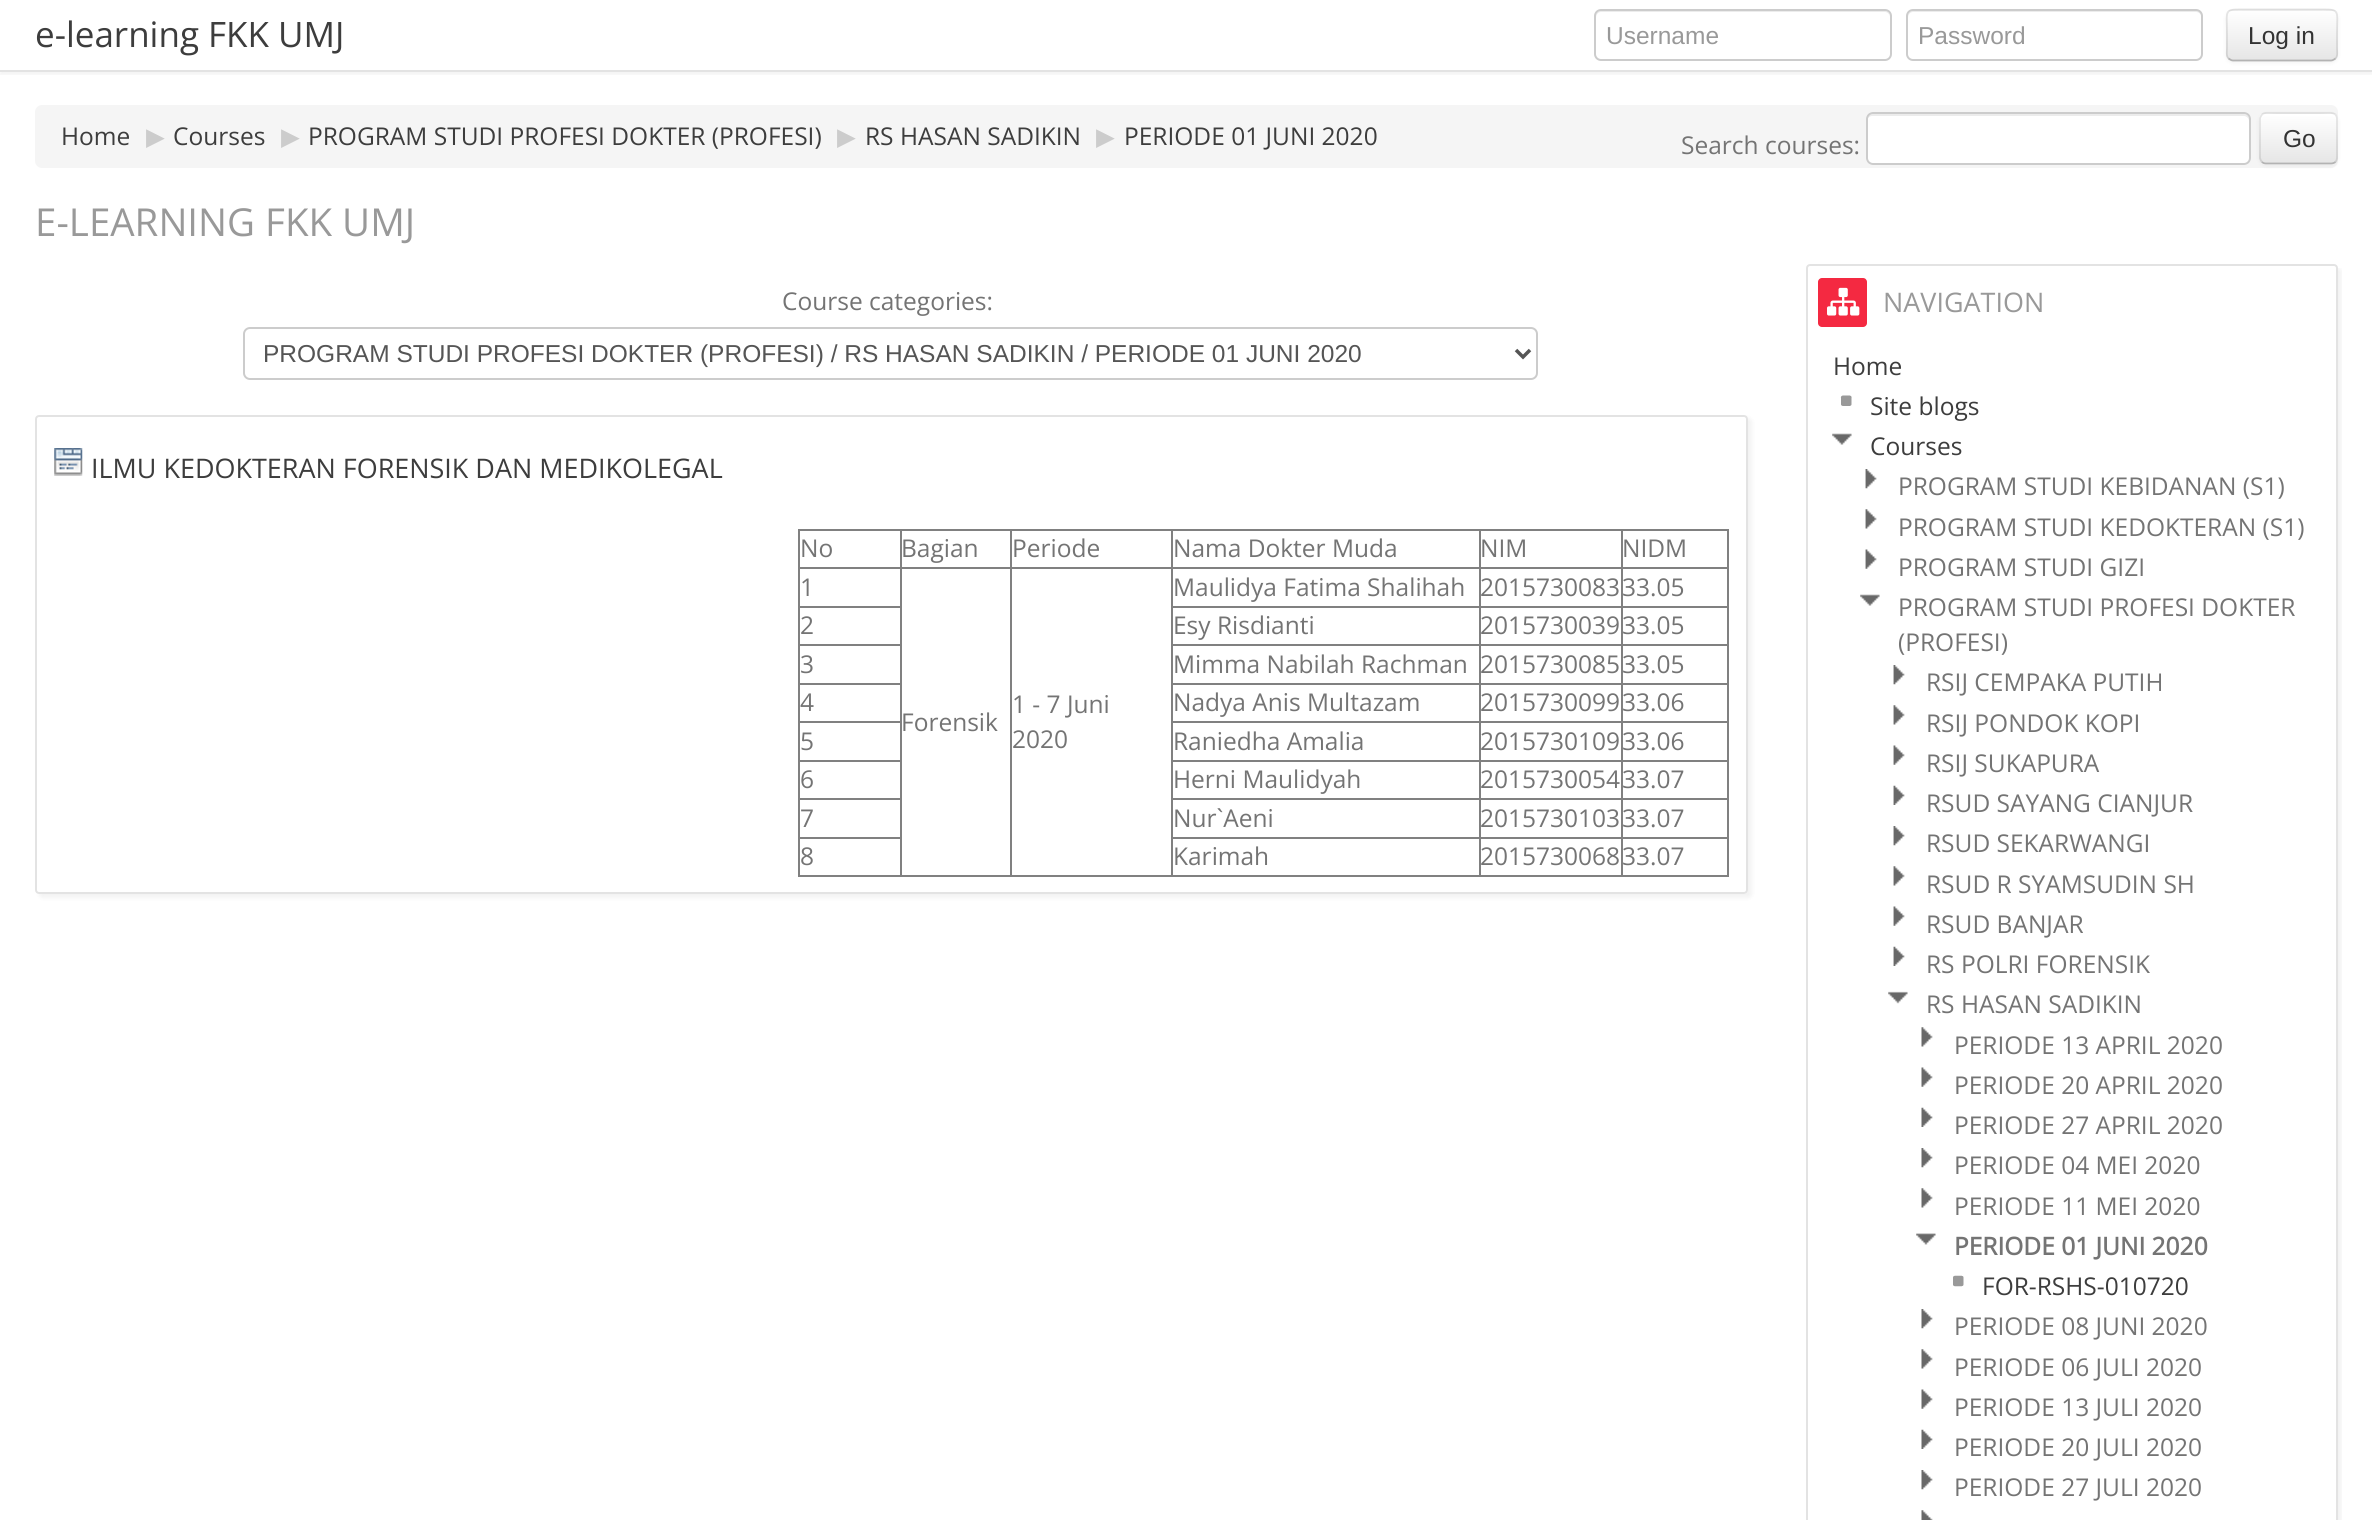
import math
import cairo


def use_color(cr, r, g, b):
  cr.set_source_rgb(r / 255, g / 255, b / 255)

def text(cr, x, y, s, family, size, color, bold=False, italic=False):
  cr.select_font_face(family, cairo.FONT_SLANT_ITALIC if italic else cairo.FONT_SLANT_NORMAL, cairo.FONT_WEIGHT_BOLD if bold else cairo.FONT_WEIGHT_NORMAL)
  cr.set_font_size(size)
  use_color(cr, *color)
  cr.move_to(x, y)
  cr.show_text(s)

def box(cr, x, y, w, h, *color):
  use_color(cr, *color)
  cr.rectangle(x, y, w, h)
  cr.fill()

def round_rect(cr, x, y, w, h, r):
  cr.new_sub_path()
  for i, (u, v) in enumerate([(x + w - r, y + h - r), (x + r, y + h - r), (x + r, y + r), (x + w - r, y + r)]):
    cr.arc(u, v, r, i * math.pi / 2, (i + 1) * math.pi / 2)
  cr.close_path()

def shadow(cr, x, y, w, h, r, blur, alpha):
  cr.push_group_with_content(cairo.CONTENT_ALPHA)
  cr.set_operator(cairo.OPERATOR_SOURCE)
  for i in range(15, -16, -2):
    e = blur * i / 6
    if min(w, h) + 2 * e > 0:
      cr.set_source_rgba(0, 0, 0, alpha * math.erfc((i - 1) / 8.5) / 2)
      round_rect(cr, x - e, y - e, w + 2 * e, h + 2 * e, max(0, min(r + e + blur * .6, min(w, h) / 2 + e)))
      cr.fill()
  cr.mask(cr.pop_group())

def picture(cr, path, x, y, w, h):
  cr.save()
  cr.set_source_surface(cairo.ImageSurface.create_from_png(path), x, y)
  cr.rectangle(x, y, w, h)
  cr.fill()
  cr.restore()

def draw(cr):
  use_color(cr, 255, 255, 255)
  cr.paint()
  cr.save()
  cr.rectangle(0, 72, 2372, 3)
  cr.clip()
  use_color(cr, 0, 0, 0)
  shadow(cr, 0, 4, 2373, 71, 0, 2, 0.05)
  cr.restore()
  box(cr, 0, 70, 2372, 2, 227, 227, 227)
  use_color(cr, 236, 236, 236)
  cr.new_path()
  cr.move_to(1601, 12)
  cr.line_to(1885, 12)
  cr.curve_to(1888, 12, 1890, 15, 1890, 18)
  cr.curve_to(1890, 15, 1889, 11, 1885, 11)
  cr.line_to(1600, 11)
  cr.curve_to(1596, 12, 1596, 15, 1596, 18)
  cr.curve_to(1596, 15, 1598, 12, 1601, 12)
  cr.close_path()
  cr.fill()
  round_rect(cr, 1595, 10, 296, 50, 6)
  use_color(cr, 204, 204, 204)
  cr.stroke()
  use_color(cr, 236, 236, 236)
  cr.new_path()
  cr.move_to(1913, 12)
  cr.line_to(2196, 12)
  cr.curve_to(2199, 12, 2202, 15, 2202, 18)
  cr.curve_to(2202, 15, 2201, 11, 2197, 11)
  cr.line_to(1912, 11)
  cr.curve_to(1908, 12, 1908, 15, 1908, 18)
  cr.curve_to(1908, 15, 1910, 12, 1913, 12)
  cr.close_path()
  cr.fill()
  round_rect(cr, 1907, 10, 295, 50, 6)
  use_color(cr, 204, 204, 204)
  cr.stroke()
  use_color(cr, 0, 0, 0)
  shadow(cr, 2226, 11, 112, 52, 7, 2, 0.05)
  use_color(cr, 245, 245, 245)
  round_rect(cr, 2226, 9, 112, 52, 7)
  cr.fill()
  cr.save()
  round_rect(cr, 2226, 9, 112, 52, 7)
  cr.clip()
  gradient = cairo.LinearGradient(2282, 10, 2282, 60)
  gradient.add_color_stop_rgba(0, 1, 1, 1, 1)
  gradient.add_color_stop_rgba(1, 0.902, 0.902, 0.902, 1)
  cr.set_source(gradient)
  cr.rectangle(2226, 11, 112, 49)
  cr.fill()
  cr.restore()
  cr.new_path()
  cr.move_to(2335.5, 58.5)
  cr.curve_to(2334, 59.5, 2332.5, 60.5, 2331, 60.5)
  cr.line_to(2233, 60.5)
  cr.curve_to(2231.5, 60.5, 2230, 59.5, 2228.5, 58.5)
  use_color(cr, 179, 179, 179)
  cr.set_line_width(1.8)
  cr.stroke()
  cr.new_path()
  cr.move_to(2228.5, 58.5)
  cr.curve_to(2226, 56, 2227, 51, 2227, 48)
  cr.line_to(2227, 35)
  cr.curve_to(2227, 7.5, 2222.5, 9.5, 2249.5, 9.5)
  cr.line_to(2314.5, 9.5)
  cr.curve_to(2341.5, 9.5, 2337, 7.5, 2337, 35)
  cr.line_to(2337, 48)
  cr.curve_to(2337, 51, 2338, 56, 2335.5, 58.5)
  cr.set_source_rgba(0, 0, 0, 0.1)
  cr.stroke()
  use_color(cr, 245, 245, 245)
  round_rect(cr, 35, 105, 2303, 63, 7)
  cr.fill()
  use_color(cr, 255, 255, 255)
  round_rect(cr, 1866, 112, 385, 53, 7)
  cr.fill()
  use_color(cr, 236, 236, 236)
  cr.new_path()
  cr.move_to(1872, 116)
  cr.line_to(2244, 116)
  cr.curve_to(2246, 116, 2249, 118, 2249, 121)
  cr.line_to(2249, 119)
  cr.curve_to(2249, 116, 2247, 114, 2244, 114)
  cr.line_to(1872, 114)
  cr.curve_to(1869, 114, 1867, 116, 1867, 119)
  cr.line_to(1867, 121)
  cr.curve_to(1867, 118, 1870, 116, 1872, 116)
  cr.close_path()
  cr.fill()
  round_rect(cr, 1867, 113, 383, 51, 6)
  use_color(cr, 204, 204, 204)
  cr.set_line_width(2)
  cr.stroke()
  use_color(cr, 0, 0, 0)
  shadow(cr, 2259, 114, 79, 52, 7, 2, 0.05)
  use_color(cr, 245, 245, 245)
  round_rect(cr, 2259, 112, 79, 53, 7)
  cr.fill()
  cr.save()
  round_rect(cr, 2259, 112, 79, 53, 7)
  cr.clip()
  gradient = cairo.LinearGradient(2299, 114, 2299, 163)
  gradient.add_color_stop_rgba(0, 1, 1, 1, 1)
  gradient.add_color_stop_rgba(1, 0.902, 0.902, 0.902, 1)
  cr.set_source(gradient)
  cr.rectangle(2259, 114, 79, 49)
  cr.fill()
  cr.restore()
  use_color(cr, 255, 255, 255)
  cr.new_path()
  cr.move_to(2266, 116)
  cr.line_to(2331, 116)
  cr.curve_to(2334, 116, 2336, 118, 2336, 121)
  cr.curve_to(2336, 111, 2328, 114, 2320, 114)
  cr.line_to(2277, 114)
  cr.curve_to(2269, 114, 2261, 111, 2261, 121)
  cr.curve_to(2261, 118, 2263, 116, 2266, 116)
  cr.close_path()
  cr.fill()
  cr.new_path()
  cr.move_to(2335.5, 162)
  cr.curve_to(2334, 163, 2332.5, 163.5, 2331, 163.5)
  cr.line_to(2266, 163.5)
  cr.curve_to(2264.5, 163.5, 2263, 163, 2262, 162)
  use_color(cr, 179, 179, 179)
  cr.set_line_width(1.8)
  cr.stroke()
  cr.new_path()
  cr.move_to(2262, 162)
  cr.curve_to(2261, 160.5, 2260, 159, 2260, 157.5)
  cr.line_to(2260, 119)
  cr.curve_to(2260, 117.5, 2261, 116, 2262, 114.5)
  cr.curve_to(2263, 113.5, 2264.5, 113, 2266, 113)
  cr.line_to(2331, 113)
  cr.curve_to(2332.5, 113, 2334, 113.5, 2335.5, 114.5)
  cr.curve_to(2336.5, 116, 2337, 117.5, 2337, 119)
  cr.line_to(2337, 157.5)
  cr.curve_to(2337, 159, 2336.5, 160.5, 2335.5, 162)
  cr.set_source_rgba(0, 0, 0, 0.1)
  cr.stroke()
  round_rect(cr, 244, 328, 1293, 51, 6)
  use_color(cr, 204, 204, 204)
  cr.set_line_width(2)
  cr.stroke()
  cr.new_path()
  cr.move_to(1516, 350)
  cr.line_to(1523, 357)
  cr.line_to(1530, 350)
  use_color(cr, 85, 85, 85)
  cr.set_line_width(3.5)
  cr.stroke()
  cr.save()
  cr.set_fill_rule(cairo.FILL_RULE_EVEN_ODD)
  cr.new_path()
  cr.move_to(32, 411)
  cr.line_to(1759, 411)
  cr.line_to(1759, 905)
  cr.line_to(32, 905)
  cr.close_path()
  cr.move_to(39, 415)
  cr.line_to(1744, 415)
  cr.curve_to(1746, 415, 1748, 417, 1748, 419)
  cr.line_to(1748, 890)
  cr.curve_to(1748, 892, 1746, 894, 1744, 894)
  cr.line_to(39, 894)
  cr.curve_to(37, 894, 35, 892, 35, 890)
  cr.line_to(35, 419)
  cr.curve_to(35, 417, 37, 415, 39, 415)
  cr.close_path()
  cr.clip()
  use_color(cr, 0, 0, 0)
  shadow(cr, 39, 418, 1713, 480, 4, 2, 0.05)
  cr.restore()
  round_rect(cr, 36, 416, 1711, 477, 3)
  use_color(cr, 227, 227, 227)
  cr.set_line_width(2)
  cr.stroke()
  picture(cr, "img_01.png", 54, 448, 29, 28)
  box(cr, 798, 529, 931, 2, 128, 128, 128)
  box(cr, 1727, 529, 2, 348, 128, 128, 128)
  box(cr, 798, 875, 931, 2, 128, 128, 128)
  box(cr, 798, 529, 2, 348, 128, 128, 128)
  box(cr, 1621, 567, 108, 2, 128, 128, 128)
  box(cr, 1621, 606, 108, 2, 128, 128, 128)
  box(cr, 1621, 644, 108, 2, 128, 128, 128)
  box(cr, 1621, 683, 108, 2, 128, 128, 128)
  box(cr, 1621, 721, 108, 2, 128, 128, 128)
  box(cr, 1621, 760, 108, 2, 128, 128, 128)
  box(cr, 1621, 798, 108, 2, 128, 128, 128)
  box(cr, 1621, 837, 108, 2, 128, 128, 128)
  box(cr, 1621, 837, 2, 40, 128, 128, 128)
  box(cr, 1479, 837, 143, 2, 128, 128, 128)
  box(cr, 1621, 798, 2, 40, 128, 128, 128)
  box(cr, 1479, 798, 143, 2, 128, 128, 128)
  box(cr, 1621, 760, 2, 40, 128, 128, 128)
  box(cr, 1479, 760, 143, 2, 128, 128, 128)
  box(cr, 1621, 721, 2, 40, 128, 128, 128)
  box(cr, 1479, 721, 143, 2, 128, 128, 128)
  box(cr, 1621, 683, 2, 40, 128, 128, 128)
  box(cr, 1479, 683, 143, 2, 128, 128, 128)
  box(cr, 1621, 644, 2, 40, 128, 128, 128)
  box(cr, 1479, 644, 143, 2, 128, 128, 128)
  box(cr, 1621, 606, 2, 40, 128, 128, 128)
  box(cr, 1479, 606, 143, 2, 128, 128, 128)
  box(cr, 1621, 567, 2, 40, 128, 128, 128)
  box(cr, 1479, 567, 143, 2, 128, 128, 128)
  box(cr, 1479, 837, 2, 40, 128, 128, 128)
  box(cr, 1171, 837, 310, 2, 128, 128, 128)
  box(cr, 1479, 798, 2, 40, 128, 128, 128)
  box(cr, 1171, 798, 310, 2, 128, 128, 128)
  box(cr, 1479, 760, 2, 40, 128, 128, 128)
  box(cr, 1171, 760, 310, 2, 128, 128, 128)
  box(cr, 1479, 721, 2, 40, 128, 128, 128)
  box(cr, 1171, 721, 310, 2, 128, 128, 128)
  box(cr, 1479, 683, 2, 40, 128, 128, 128)
  box(cr, 1171, 683, 310, 2, 128, 128, 128)
  box(cr, 1479, 644, 2, 40, 128, 128, 128)
  box(cr, 1171, 644, 310, 2, 128, 128, 128)
  box(cr, 1479, 606, 2, 40, 128, 128, 128)
  box(cr, 1171, 606, 310, 2, 128, 128, 128)
  box(cr, 1479, 567, 2, 40, 128, 128, 128)
  box(cr, 1171, 567, 310, 2, 128, 128, 128)
  box(cr, 1171, 837, 2, 40, 128, 128, 128)
  box(cr, 1171, 798, 2, 40, 128, 128, 128)
  box(cr, 1171, 760, 2, 40, 128, 128, 128)
  box(cr, 1171, 721, 2, 40, 128, 128, 128)
  box(cr, 1171, 683, 2, 40, 128, 128, 128)
  box(cr, 1171, 644, 2, 40, 128, 128, 128)
  box(cr, 1171, 606, 2, 40, 128, 128, 128)
  box(cr, 1171, 567, 2, 40, 128, 128, 128)
  box(cr, 1010, 567, 163, 2, 128, 128, 128)
  box(cr, 1010, 567, 2, 310, 128, 128, 128)
  box(cr, 900, 567, 112, 2, 128, 128, 128)
  box(cr, 798, 606, 103, 2, 128, 128, 128)
  box(cr, 798, 644, 103, 2, 128, 128, 128)
  box(cr, 798, 683, 103, 2, 128, 128, 128)
  box(cr, 798, 721, 103, 2, 128, 128, 128)
  box(cr, 798, 760, 103, 2, 128, 128, 128)
  box(cr, 798, 798, 103, 2, 128, 128, 128)
  box(cr, 798, 837, 103, 2, 128, 128, 128)
  box(cr, 900, 567, 2, 310, 128, 128, 128)
  box(cr, 798, 567, 103, 2, 128, 128, 128)
  box(cr, 900, 529, 2, 40, 128, 128, 128)
  box(cr, 1010, 529, 2, 40, 128, 128, 128)
  box(cr, 1171, 529, 2, 40, 128, 128, 128)
  box(cr, 1479, 529, 2, 40, 128, 128, 128)
  box(cr, 1621, 529, 2, 40, 128, 128, 128)
  cr.save()
  cr.rectangle(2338, 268, 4, 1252)
  cr.clip()
  use_color(cr, 0, 0, 0)
  shadow(cr, 1810, 268, 532, 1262, 4, 2, 0.05)
  cr.restore()
  round_rect(cr, 1807, 265, 530, 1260, 3)
  use_color(cr, 227, 227, 227)
  cr.stroke()
  use_color(cr, 244, 41, 65)
  round_rect(cr, 1818, 278, 49, 49, 4)
  cr.fill()
  picture(cr, "img_02.png", 1827, 287, 33, 29)
  picture(cr, "img_03.png", 1840, 395, 12, 11)
  picture(cr, "img_04.png", 1832, 433, 20, 12)
  picture(cr, "img_05.png", 1865, 469, 12, 20)
  picture(cr, "img_06.png", 1865, 509, 12, 20)
  picture(cr, "img_07.png", 1865, 549, 12, 20)
  picture(cr, "img_04.png", 1860, 594, 20, 12)
  picture(cr, "img_05.png", 1893, 665, 12, 20)
  picture(cr, "img_06.png", 1893, 705, 12, 20)
  picture(cr, "img_07.png", 1893, 745, 12, 20)
  picture(cr, "img_08.png", 1893, 785, 12, 20)
  picture(cr, "img_05.png", 1893, 826, 12, 20)
  picture(cr, "img_06.png", 1893, 866, 12, 20)
  picture(cr, "img_07.png", 1893, 906, 12, 20)
  picture(cr, "img_08.png", 1893, 946, 12, 20)
  picture(cr, "img_09.png", 1888, 991, 20, 13)
  picture(cr, "img_10.png", 1921, 1027, 12, 20)
  picture(cr, "img_11.png", 1921, 1067, 12, 20)
  picture(cr, "img_12.png", 1921, 1107, 12, 20)
  picture(cr, "img_13.png", 1921, 1148, 12, 20)
  picture(cr, "img_10.png", 1921, 1188, 12, 20)
  picture(cr, "img_14.png", 1916, 1233, 20, 12)
  picture(cr, "img_15.png", 1953, 1275, 11, 12)
  picture(cr, "img_13.png", 1921, 1309, 12, 20)
  picture(cr, "img_10.png", 1921, 1349, 12, 20)
  picture(cr, "img_11.png", 1921, 1389, 12, 20)
  picture(cr, "img_12.png", 1921, 1429, 12, 20)
  picture(cr, "img_13.png", 1921, 1470, 12, 20)
  picture(cr, "img_16.png", 1921, 1510, 12, 10)
  text(cr, 35, 47, "e-learning FKK UMJ", "Open Sans", 35, (61, 61, 61))
  text(cr, 1606, 44, "Username", "Liberation Sans", 24.5, (153, 153, 153))
  text(cr, 1918, 44, "Password", "Liberation Sans", 24.5, (153, 153, 153))
  text(cr, 2248, 44, "Log in", "Liberation Sans", 24.5, (51, 51, 51))
  text(cr, 61, 145, "Home", "Open Sans", 24.5, (61, 61, 61))
  text(cr, 146, 145, "▶", "DejaVu Sans", 24.5, (204, 204, 204))
  text(cr, 173, 145, "Courses", "Open Sans", 24.5, (61, 61, 61))
  text(cr, 281, 145, "▶", "DejaVu Sans", 24.5, (204, 204, 204))
  text(cr, 308, 145, "PROGRAM STUDI PROFESI DOKTER (PROFESI)", "Open Sans", 24.5, (61, 61, 61))
  text(cr, 837, 145, "▶", "DejaVu Sans", 24.5, (204, 204, 204))
  text(cr, 865, 145, "RS HASAN SADIKIN", "Open Sans", 24.5, (61, 61, 61))
  text(cr, 1096, 145, "▶", "DejaVu Sans", 24.5, (204, 204, 204))
  text(cr, 1124, 145, "PERIODE 01 JUNI 2020", "Open Sans", 24.5, (61, 61, 61))
  text(cr, 1681, 154, "Search courses:", "Open Sans", 24.5, (116, 116, 116))
  text(cr, 2283, 147, "Go", "Liberation Sans", 24.5, (51, 51, 51))
  text(cr, 35, 236, "E-LEARNING FKK UMJ", "Open Sans", 38.5, (153, 153, 153))
  text(cr, 782, 310, "Course categories:", "Open Sans", 24.5, (116, 116, 116))
  text(cr, 263, 362, "PROGRAM STUDI PROFESI DOKTER (PROFESI) / RS HASAN SADIKIN / PERIODE 01 JUNI 2020", "Liberation Sans", 24.5, (85, 85, 85))
  text(cr, 91, 478, "ILMU KEDOKTERAN FORENSIK DAN MEDIKOLEGAL", "Open Sans", 26.95, (61, 61, 61))
  text(cr, 800, 557, "No", "Open Sans", 24.5, (116, 116, 116))
  text(cr, 901, 557, "Bagian", "Open Sans", 24.5, (116, 116, 116))
  text(cr, 1012, 557, "Periode", "Open Sans", 24.5, (116, 116, 116))
  text(cr, 1173, 557, "Nama Dokter Muda", "Open Sans", 24.5, (116, 116, 116))
  text(cr, 1480, 557, "NIM", "Open Sans", 24.5, (116, 116, 116))
  text(cr, 1622, 557, "NIDM", "Open Sans", 24.5, (116, 116, 116))
  text(cr, 800, 596, "1", "Open Sans", 24.5, (116, 116, 116))
  text(cr, 1173, 596, "Maulidya Fatima Shalihah", "Open Sans", 24.5, (116, 116, 116))
  text(cr, 1480, 596, "2015730083", "Open Sans", 24.5, (116, 116, 116))
  text(cr, 1622, 596, "33.05", "Open Sans", 24.5, (116, 116, 116))
  text(cr, 901, 731, "Forensik", "Open Sans", 24.5, (116, 116, 116))
  text(cr, 1012, 713, "1 - 7 Juni", "Open Sans", 24.5, (116, 116, 116))
  text(cr, 1012, 748, "2020", "Open Sans", 24.5, (116, 116, 116))
  text(cr, 800, 634, "2", "Open Sans", 24.5, (116, 116, 116))
  text(cr, 1173, 634, "Esy Risdianti", "Open Sans", 24.5, (116, 116, 116))
  text(cr, 1480, 634, "2015730039", "Open Sans", 24.5, (116, 116, 116))
  text(cr, 1622, 634, "33.05", "Open Sans", 24.5, (116, 116, 116))
  text(cr, 800, 673, "3", "Open Sans", 24.5, (116, 116, 116))
  text(cr, 1173, 673, "Mimma Nabilah Rachman", "Open Sans", 24.5, (116, 116, 116))
  text(cr, 1480, 673, "2015730085", "Open Sans", 24.5, (116, 116, 116))
  text(cr, 1622, 673, "33.05", "Open Sans", 24.5, (116, 116, 116))
  text(cr, 800, 711, "4", "Open Sans", 24.5, (116, 116, 116))
  text(cr, 1173, 711, "Nadya Anis Multazam", "Open Sans", 24.5, (116, 116, 116))
  text(cr, 1480, 711, "2015730099", "Open Sans", 24.5, (116, 116, 116))
  text(cr, 1622, 711, "33.06", "Open Sans", 24.5, (116, 116, 116))
  text(cr, 800, 750, "5", "Open Sans", 24.5, (116, 116, 116))
  text(cr, 1173, 750, "Raniedha Amalia", "Open Sans", 24.5, (116, 116, 116))
  text(cr, 1480, 750, "2015730109", "Open Sans", 24.5, (116, 116, 116))
  text(cr, 1622, 750, "33.06", "Open Sans", 24.5, (116, 116, 116))
  text(cr, 800, 788, "6", "Open Sans", 24.5, (116, 116, 116))
  text(cr, 1173, 788, "Herni Maulidyah", "Open Sans", 24.5, (116, 116, 116))
  text(cr, 1480, 788, "2015730054", "Open Sans", 24.5, (116, 116, 116))
  text(cr, 1622, 788, "33.07", "Open Sans", 24.5, (116, 116, 116))
  text(cr, 800, 827, "7", "Open Sans", 24.5, (116, 116, 116))
  text(cr, 1173, 827, "Nur`Aeni", "Open Sans", 24.5, (116, 116, 116))
  text(cr, 1480, 827, "2015730103", "Open Sans", 24.5, (116, 116, 116))
  text(cr, 1622, 827, "33.07", "Open Sans", 24.5, (116, 116, 116))
  text(cr, 800, 865, "8", "Open Sans", 24.5, (116, 116, 116))
  text(cr, 1173, 865, "Karimah", "Open Sans", 24.5, (116, 116, 116))
  text(cr, 1480, 865, "2015730068", "Open Sans", 24.5, (116, 116, 116))
  text(cr, 1622, 865, "33.07", "Open Sans", 24.5, (116, 116, 116))
  text(cr, 1883, 312, "NAVIGATION", "Open Sans", 26.95, (153, 153, 153))
  text(cr, 1833, 375, "Home", "Open Sans", 24.5, (61, 61, 61))
  text(cr, 1870, 415, "Site blogs", "Open Sans", 24.5, (61, 61, 61))
  text(cr, 1870, 455, "Courses", "Open Sans", 24.5, (61, 61, 61))
  text(cr, 1898, 495, "PROGRAM STUDI KEBIDANAN (S1)", "Open Sans", 24.5, (116, 116, 116))
  text(cr, 1898, 536, "PROGRAM STUDI KEDOKTERAN (S1)", "Open Sans", 24.5, (116, 116, 116))
  text(cr, 1898, 576, "PROGRAM STUDI GIZI", "Open Sans", 24.5, (116, 116, 116))
  text(cr, 1898, 616, "PROGRAM STUDI PROFESI DOKTER", "Open Sans", 24.5, (116, 116, 116))
  text(cr, 1898, 651, "(PROFESI)", "Open Sans", 24.5, (116, 116, 116))
  text(cr, 1926, 691, "RSIJ CEMPAKA PUTIH", "Open Sans", 24.5, (116, 116, 116))
  text(cr, 1926, 732, "RSIJ PONDOK KOPI", "Open Sans", 24.5, (116, 116, 116))
  text(cr, 1926, 772, "RSIJ SUKAPURA", "Open Sans", 24.5, (116, 116, 116))
  text(cr, 1926, 812, "RSUD SAYANG CIANJUR", "Open Sans", 24.5, (116, 116, 116))
  text(cr, 1926, 852, "RSUD SEKARWANGI", "Open Sans", 24.5, (116, 116, 116))
  text(cr, 1926, 893, "RSUD R SYAMSUDIN SH", "Open Sans", 24.5, (116, 116, 116))
  text(cr, 1926, 933, "RSUD BANJAR", "Open Sans", 24.5, (116, 116, 116))
  text(cr, 1926, 973, "RS POLRI FORENSIK", "Open Sans", 24.5, (116, 116, 116))
  text(cr, 1926, 1013, "RS HASAN SADIKIN", "Open Sans", 24.5, (116, 116, 116))
  text(cr, 1954, 1054, "PERIODE 13 APRIL 2020", "Open Sans", 24.5, (116, 116, 116))
  text(cr, 1954, 1094, "PERIODE 20 APRIL 2020", "Open Sans", 24.5, (116, 116, 116))
  text(cr, 1954, 1134, "PERIODE 27 APRIL 2020", "Open Sans", 24.5, (116, 116, 116))
  text(cr, 1954, 1174, "PERIODE 04 MEI 2020", "Open Sans", 24.5, (116, 116, 116))
  text(cr, 1954, 1215, "PERIODE 11 MEI 2020", "Open Sans", 24.5, (116, 116, 116))
  text(cr, 1954, 1255, "PERIODE 01 JUNI 2020", "Open Sans", 24.5, (116, 116, 116), bold=True)
  text(cr, 1982, 1295, "FOR-RSHS-010720", "Open Sans", 24.5, (61, 61, 61))
  text(cr, 1954, 1335, "PERIODE 08 JUNI 2020", "Open Sans", 24.5, (116, 116, 116))
  text(cr, 1954, 1376, "PERIODE 06 JULI 2020", "Open Sans", 24.5, (116, 116, 116))
  text(cr, 1954, 1416, "PERIODE 13 JULI 2020", "Open Sans", 24.5, (116, 116, 116))
  text(cr, 1954, 1456, "PERIODE 20 JULI 2020", "Open Sans", 24.5, (116, 116, 116))
  text(cr, 1954, 1496, "PERIODE 27 JULI 2020", "Open Sans", 24.5, (116, 116, 116))


surface = cairo.ImageSurface(cairo.FORMAT_RGB24, 2372, 1520)
cr = cairo.Context(surface)
options = cairo.FontOptions()
options.set_hint_metrics(cairo.HINT_METRICS_OFF)
options.set_hint_style(cairo.HINT_STYLE_NONE)
cr.set_font_options(options)
cr.set_miter_limit(4)
draw(cr)
surface.write_to_png("out.png")
